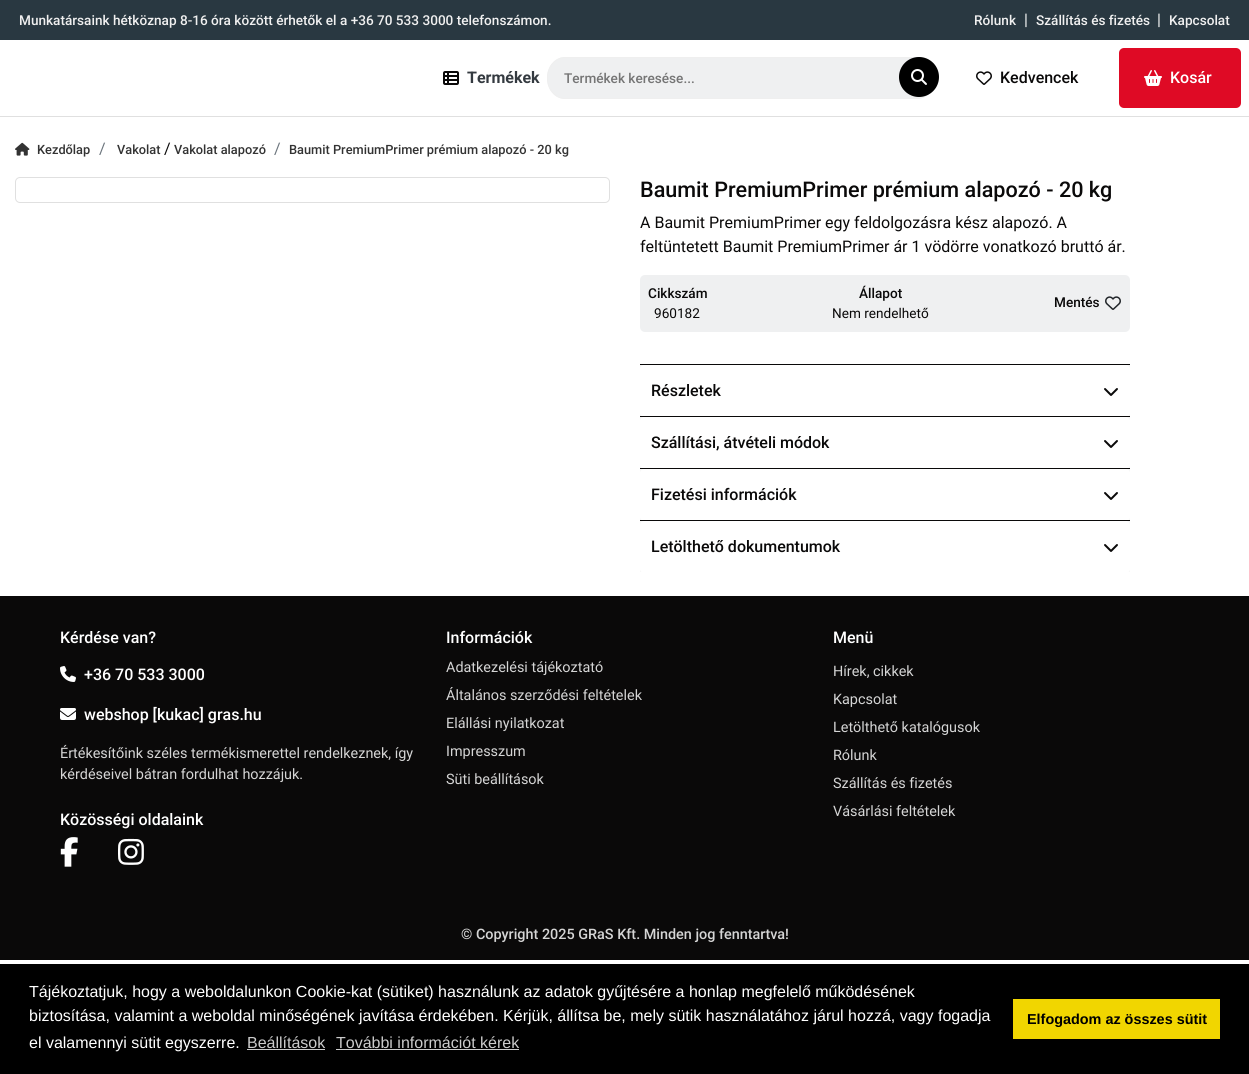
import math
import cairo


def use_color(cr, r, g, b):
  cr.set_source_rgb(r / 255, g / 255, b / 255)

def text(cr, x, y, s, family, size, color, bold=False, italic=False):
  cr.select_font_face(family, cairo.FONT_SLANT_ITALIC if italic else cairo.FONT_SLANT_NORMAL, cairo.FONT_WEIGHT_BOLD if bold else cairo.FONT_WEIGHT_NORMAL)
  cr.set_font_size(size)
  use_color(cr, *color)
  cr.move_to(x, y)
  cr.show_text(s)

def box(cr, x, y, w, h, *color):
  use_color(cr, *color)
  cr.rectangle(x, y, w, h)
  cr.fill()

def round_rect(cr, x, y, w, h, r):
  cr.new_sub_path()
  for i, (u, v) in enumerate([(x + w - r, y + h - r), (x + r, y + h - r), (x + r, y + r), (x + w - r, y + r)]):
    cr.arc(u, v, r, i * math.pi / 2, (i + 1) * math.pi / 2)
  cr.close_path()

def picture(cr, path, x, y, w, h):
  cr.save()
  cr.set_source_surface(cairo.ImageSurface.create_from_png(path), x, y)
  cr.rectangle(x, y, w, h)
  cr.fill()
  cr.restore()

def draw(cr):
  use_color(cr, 255, 255, 255)
  cr.paint()
  box(cr, 0, 0, 1249, 40, 41, 56, 65)
  box(cr, 0, 116, 1249, 1, 224, 224, 224)
  picture(cr, "img_01.png", 443, 71, 16, 14)
  use_color(cr, 239, 240, 241)
  cr.new_path()
  cr.move_to(565, 57)
  cr.line_to(917, 57)
  cr.curve_to(927, 57, 935, 66, 935, 78)
  cr.curve_to(935, 90, 927, 99, 917, 99)
  cr.line_to(565, 99)
  cr.curve_to(555, 99, 547, 90, 547, 78)
  cr.curve_to(547, 66, 555, 57, 565, 57)
  cr.close_path()
  cr.fill()
  cr.new_path()
  cr.move_to(565.5, 57.5)
  cr.line_to(916.5, 57.5)
  cr.curve_to(926.5, 57.5, 934.5, 66.5, 934.5, 78)
  cr.curve_to(934.5, 89.5, 926.5, 98.5, 916.5, 98.5)
  cr.line_to(565.5, 98.5)
  cr.curve_to(555.5, 98.5, 547.5, 89.5, 547.5, 78)
  cr.curve_to(547.5, 66.5, 555.5, 57.5, 565.5, 57.5)
  cr.close_path()
  use_color(cr, 239, 239, 239)
  cr.set_line_width(1)
  cr.stroke()
  use_color(cr, 0, 0, 0)
  cr.arc(919, 77, 20, 0, 2 * math.pi)
  cr.fill()
  picture(cr, "img_02.png", 911, 69, 16, 16)
  picture(cr, "img_03.png", 976, 71, 16, 14)
  use_color(cr, 223, 10, 37)
  round_rect(cr, 1119, 48, 122, 60, 5)
  cr.fill()
  picture(cr, "img_04.png", 1144, 70, 18, 16)
  picture(cr, "img_05.png", 15, 142, 15, 14)
  round_rect(cr, 15.5, 177.5, 594, 25, 4.5)
  use_color(cr, 224, 224, 224)
  cr.stroke()
  use_color(cr, 239, 240, 241)
  round_rect(cr, 640, 275, 490, 57, 5)
  cr.fill()
  picture(cr, "img_06.png", 1105, 296, 16, 14)
  box(cr, 640, 364, 490, 1, 10, 9, 9)
  box(cr, 640, 365, 490, 51, 247, 247, 247)
  use_color(cr, 255, 255, 255)
  round_rect(cr, 640, 365, 490, 52, 4)
  cr.fill()
  picture(cr, "img_07.png", 1104, 388, 14, 8)
  box(cr, 640, 416, 490, 1, 10, 9, 9)
  box(cr, 640, 417, 490, 51, 247, 247, 247)
  use_color(cr, 255, 255, 255)
  round_rect(cr, 640, 417, 490, 52, 4)
  cr.fill()
  picture(cr, "img_07.png", 1104, 440, 14, 8)
  box(cr, 640, 468, 490, 1, 10, 9, 9)
  box(cr, 640, 469, 490, 51, 247, 247, 247)
  use_color(cr, 255, 255, 255)
  round_rect(cr, 640, 469, 490, 52, 4)
  cr.fill()
  picture(cr, "img_07.png", 1104, 492, 14, 8)
  box(cr, 640, 520, 490, 1, 10, 9, 9)
  box(cr, 640, 521, 490, 51, 247, 247, 247)
  cr.save()
  cr.rectangle(640, 521, 490, 51)
  cr.clip()
  use_color(cr, 255, 255, 255)
  round_rect(cr, 640, 521, 490, 52, 4)
  cr.fill()
  cr.restore()
  picture(cr, "img_07.png", 1104, 544, 14, 8)
  box(cr, 0, 596, 1249, 364, 10, 9, 9)
  picture(cr, "img_08.png", 60, 666, 16, 16)
  picture(cr, "img_09.png", 60, 708, 16, 12)
  picture(cr, "img_10.png", 60, 837, 18, 30)
  picture(cr, "img_11.png", 118, 838, 26, 27)
  box(cr, 0, 964, 1249, 110, 0, 0, 0)
  box(cr, 247, 1049, 78, 1, 204, 204, 204)
  box(cr, 336, 1049, 183, 1, 204, 204, 204)
  box(cr, 1013, 999, 207, 40, 241, 214, 0)
  text(cr, 19, 25, "Munkatársaink hétköznap 8-16 óra között érhetők el a +36 70 533 3000 telefonszámon.", "Roboto Medium", 13.6, (240, 240, 240))
  text(cr, 974, 25, "Rólunk", "Roboto Medium", 13.6, (240, 240, 240))
  text(cr, 1024, 25, "|", "Roboto", 16, (249, 249, 249))
  text(cr, 1036, 25, "Szállítás és fizetés", "Roboto Medium", 13.6, (240, 240, 240))
  text(cr, 1157, 25, "|", "Roboto", 16, (249, 249, 249))
  text(cr, 1169, 25, "Kapcsolat", "Roboto Medium", 13.6, (240, 240, 240))
  text(cr, 467, 83, "Termékek", "Roboto", 16, (52, 58, 64), bold=True)
  text(cr, 564, 83, "Termékek keresése...", "Roboto Medium", 13.6, (117, 117, 117))
  text(cr, 1000, 83, "Kedvencek", "Roboto Medium", 16, (10, 9, 9))
  text(cr, 1170, 83, "Kosár", "Roboto Medium", 16, (255, 255, 255))
  text(cr, 37, 154, "Kezdőlap", "Roboto Medium", 12.8, (51, 51, 51))
  text(cr, 99, 154, "/", "Roboto", 16, (108, 117, 125))
  text(cr, 117, 154, "Vakolat", "Roboto Medium", 12.8, (51, 51, 51))
  text(cr, 164, 154, "/", "Roboto", 16, (10, 9, 9))
  text(cr, 174, 154, "Vakolat alapozó", "Roboto Medium", 12.8, (51, 51, 51))
  text(cr, 274, 154, "/", "Roboto", 16, (108, 117, 125))
  text(cr, 289, 154, "Baumit PremiumPrimer prémium alapozó - 20 kg", "Roboto Medium", 12.8, (51, 51, 51))
  text(cr, 640, 197, "Baumit PremiumPrimer prémium alapozó - 20 kg", "Roboto Medium", 21.6, (10, 9, 9))
  text(cr, 640, 228, "A Baumit PremiumPrimer egy feldolgozásra kész alapozó. A", "Roboto", 16, (10, 9, 9))
  text(cr, 640, 252, "feltüntetett Baumit PremiumPrimer ár 1 vödörre vonatkozó bruttó ár.", "Roboto", 16, (10, 9, 9))
  text(cr, 648, 298, "Cikkszám", "Roboto Medium", 13.6, (10, 9, 9))
  text(cr, 654, 318, "960182", "Roboto", 13.6, (10, 9, 9))
  text(cr, 859, 298, "Állapot", "Roboto Medium", 13.6, (10, 9, 9))
  text(cr, 832, 318, "Nem rendelhető", "Roboto", 13.6, (10, 9, 9))
  text(cr, 1054, 307, "Mentés", "Roboto Medium", 13.6, (10, 9, 9))
  text(cr, 651, 396, "Részletek", "Roboto Medium", 16, (10, 9, 9))
  text(cr, 651, 448, "Szállítási, átvételi módok", "Roboto Medium", 16, (10, 9, 9))
  text(cr, 651, 500, "Fizetési információk", "Roboto Medium", 16, (10, 9, 9))
  text(cr, 651, 552, "Letölthető dokumentumok", "Roboto Medium", 16, (10, 9, 9))
  text(cr, 60, 643, "Kérdése van?", "Roboto Medium", 16, (255, 255, 255))
  text(cr, 84, 680, "+36 70 533 3000", "Roboto Medium", 16, (255, 255, 255))
  text(cr, 84, 720, "webshop [kukac] gras.hu", "Roboto Medium", 16, (255, 255, 255))
  text(cr, 60, 758, "Értékesítőink széles termékismerettel rendelkeznek, így", "Roboto", 14.4, (213, 213, 213))
  text(cr, 60, 779, "kérdéseivel bátran fordulhat hozzájuk.", "Roboto", 14.4, (213, 213, 213))
  text(cr, 60, 825, "Közösségi oldalaink", "Roboto Medium", 16, (255, 255, 255))
  text(cr, 446, 643, "Információk", "Roboto Medium", 16, (255, 255, 255))
  text(cr, 446, 672, "Adatkezelési tájékoztató", "Roboto", 14.4, (213, 213, 213))
  text(cr, 446, 700, "Általános szerződési feltételek", "Roboto", 14.4, (213, 213, 213))
  text(cr, 446, 728, "Elállási nyilatkozat", "Roboto", 14.4, (213, 213, 213))
  text(cr, 446, 756, "Impresszum", "Roboto", 14.4, (213, 213, 213))
  text(cr, 446, 784, "Süti beállítások", "Roboto", 14.4, (213, 213, 213))
  text(cr, 833, 643, "Menü", "Roboto Medium", 16, (255, 255, 255))
  text(cr, 833, 676, "Hírek, cikkek", "Roboto", 14.4, (213, 213, 213))
  text(cr, 833, 704, "Kapcsolat", "Roboto", 14.4, (213, 213, 213))
  text(cr, 833, 732, "Letölthető katalógusok", "Roboto", 14.4, (213, 213, 213))
  text(cr, 833, 760, "Rólunk", "Roboto", 14.4, (213, 213, 213))
  text(cr, 833, 788, "Szállítás és fizetés", "Roboto", 14.4, (213, 213, 213))
  text(cr, 833, 816, "Vásárlási feltételek", "Roboto", 14.4, (213, 213, 213))
  text(cr, 461, 939, "© Copyright 2025 GRaS Kft. Minden jog fenntartva!", "Roboto Medium", 14.4, (213, 213, 213))
  text(cr, 29, 997, "Tájékoztatjuk, hogy a weboldalunkon Cookie-kat (sütiket) használunk az adatok gyűjtésére a honlap megfelelő működésének", "Liberation Sans", 16, (255, 255, 255))
  text(cr, 29, 1021, "biztosítása, valamint a weboldal minőségének javítása érdekében. Kérjük, állítsa be, mely sütik használatához járul hozzá, vagy fogadja", "Liberation Sans", 16, (255, 255, 255))
  text(cr, 29, 1048, "el valamennyi sütit egyszerre.", "Liberation Sans", 16, (255, 255, 255))
  text(cr, 247, 1048, "Beállítások", "Liberation Sans", 16, (204, 204, 204))
  text(cr, 336, 1048, "További információt kérek", "Liberation Sans", 16, (204, 204, 204))
  text(cr, 1027, 1024, "Elfogadom az összes sütit", "Liberation Sans", 14.4, (0, 0, 0), bold=True)


surface = cairo.ImageSurface(cairo.FORMAT_RGB24, 1249, 1074)
cr = cairo.Context(surface)
options = cairo.FontOptions()
options.set_hint_metrics(cairo.HINT_METRICS_OFF)
options.set_hint_style(cairo.HINT_STYLE_NONE)
cr.set_font_options(options)
cr.set_miter_limit(4)
draw(cr)
surface.write_to_png("out.png")
